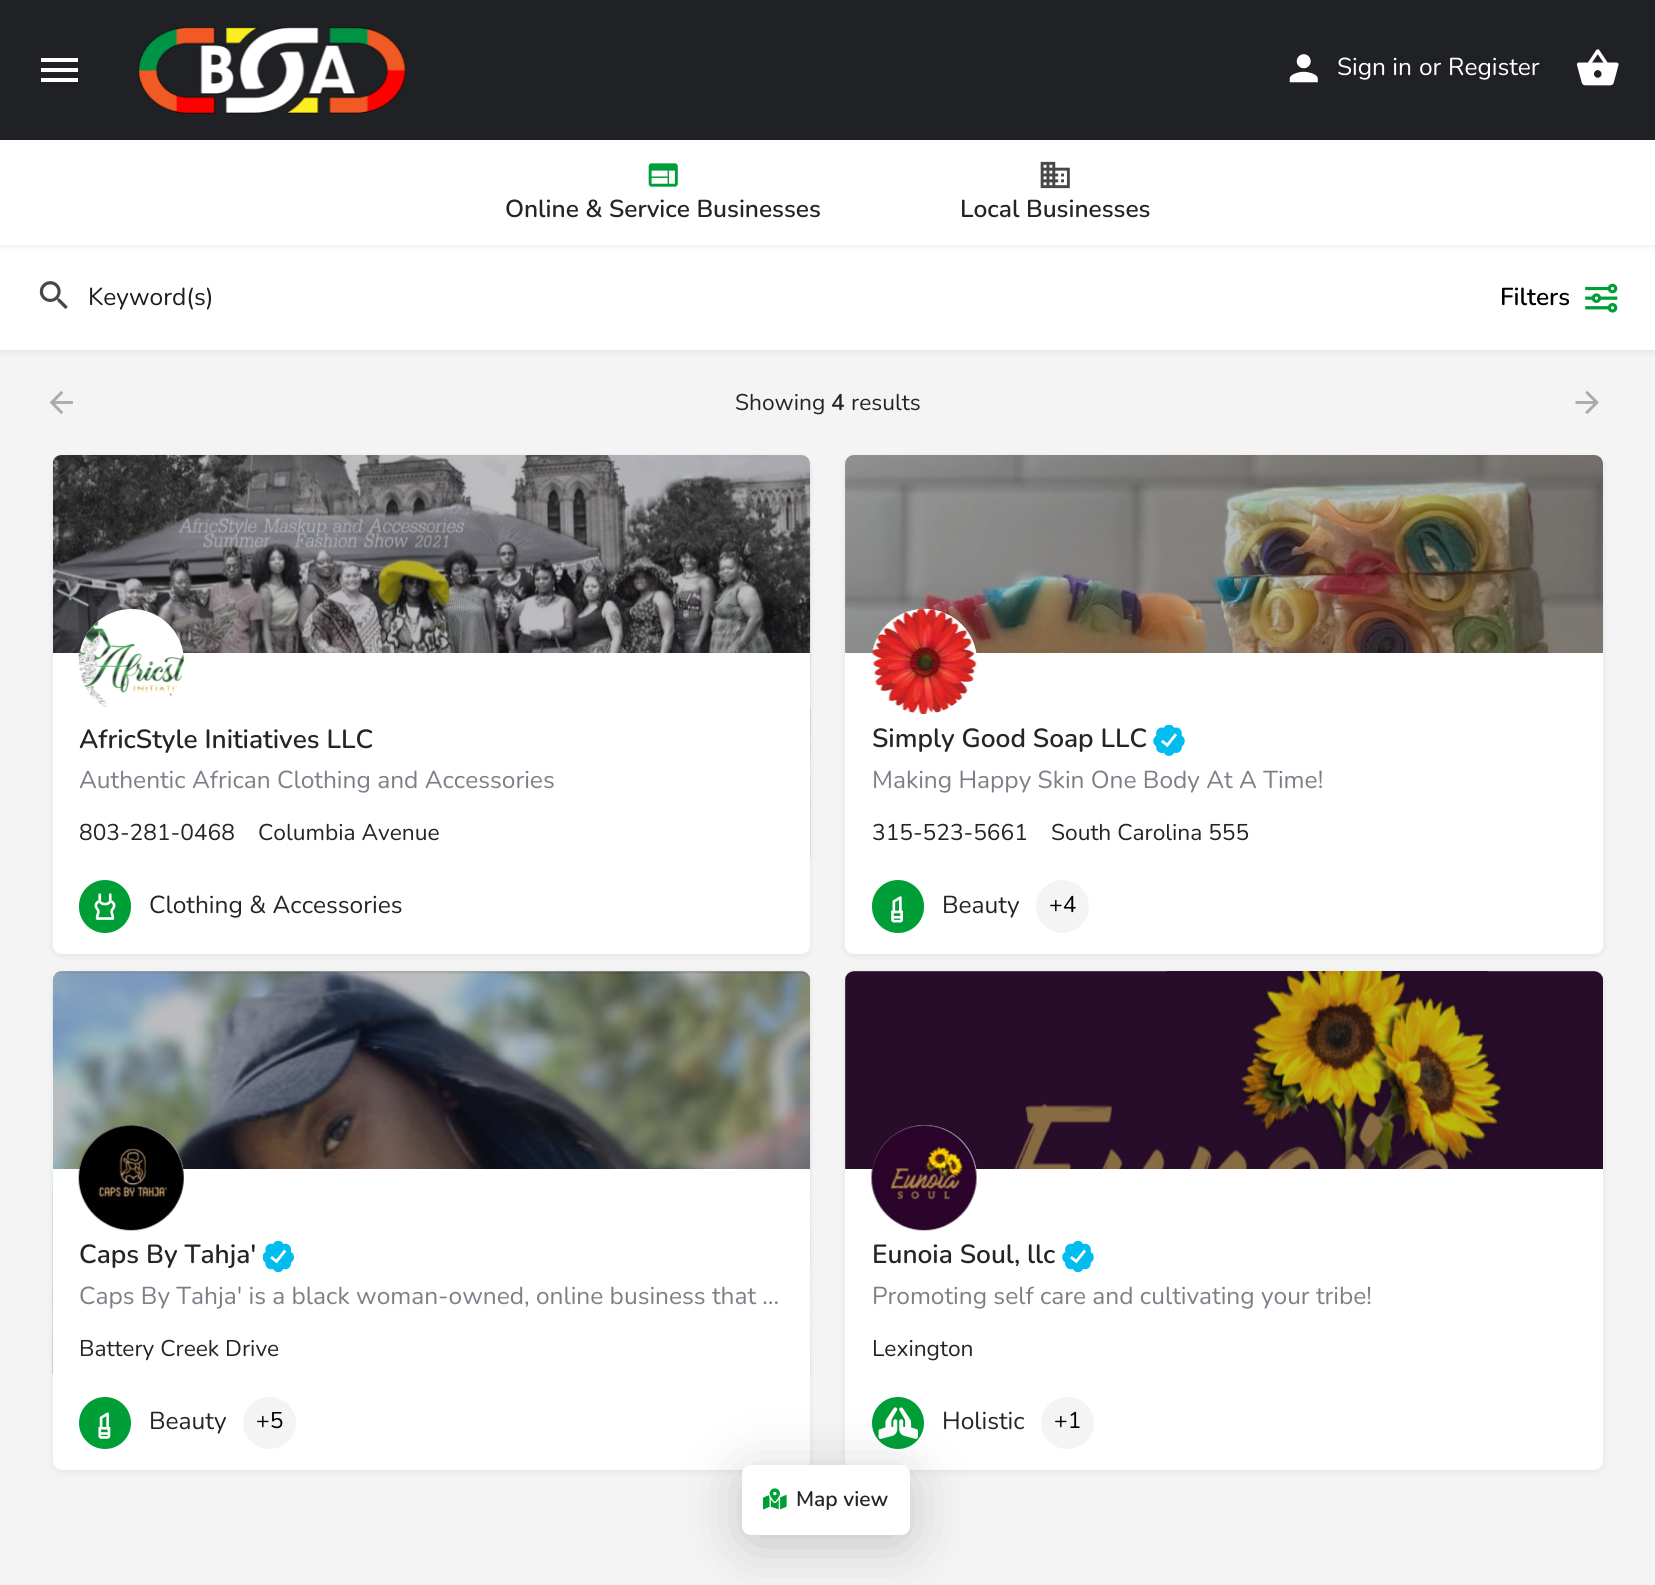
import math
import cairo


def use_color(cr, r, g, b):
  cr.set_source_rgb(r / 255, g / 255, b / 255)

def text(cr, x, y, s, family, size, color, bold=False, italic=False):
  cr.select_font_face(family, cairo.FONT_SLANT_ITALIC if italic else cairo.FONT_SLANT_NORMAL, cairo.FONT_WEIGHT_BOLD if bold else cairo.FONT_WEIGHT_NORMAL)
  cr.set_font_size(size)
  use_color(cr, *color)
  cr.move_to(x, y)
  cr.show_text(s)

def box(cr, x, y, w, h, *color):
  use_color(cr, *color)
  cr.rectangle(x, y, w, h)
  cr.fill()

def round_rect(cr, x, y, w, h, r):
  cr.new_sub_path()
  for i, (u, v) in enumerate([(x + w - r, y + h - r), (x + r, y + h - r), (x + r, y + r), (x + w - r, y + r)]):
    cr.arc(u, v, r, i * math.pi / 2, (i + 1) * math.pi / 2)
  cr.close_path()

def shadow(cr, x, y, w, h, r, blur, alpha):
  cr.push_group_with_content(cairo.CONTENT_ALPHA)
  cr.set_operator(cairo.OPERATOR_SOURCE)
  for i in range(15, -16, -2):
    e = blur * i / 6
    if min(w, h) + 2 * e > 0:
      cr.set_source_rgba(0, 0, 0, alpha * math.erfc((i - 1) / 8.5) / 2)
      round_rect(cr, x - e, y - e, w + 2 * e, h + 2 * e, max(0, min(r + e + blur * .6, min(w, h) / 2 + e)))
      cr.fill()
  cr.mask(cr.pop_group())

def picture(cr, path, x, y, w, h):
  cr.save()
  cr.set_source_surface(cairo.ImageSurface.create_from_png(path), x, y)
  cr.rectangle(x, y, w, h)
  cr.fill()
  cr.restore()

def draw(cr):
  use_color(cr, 244, 244, 244)
  cr.paint()
  use_color(cr, 0, 0, 0)
  shadow(cr, 0, 247, 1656, 105, 0, 3.5, 0.07)
  box(cr, 0, 245, 1655, 105, 255, 255, 255)
  use_color(cr, 0, 0, 0)
  shadow(cr, 0, 142, 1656, 105, 0, 3.5, 0.07)
  box(cr, 0, 0, 1655, 140, 32, 33, 37)
  use_color(cr, 255, 255, 255)
  cr.new_path()
  cr.move_to(41, 58)
  cr.line_to(78, 58)
  cr.line_to(78, 62)
  cr.line_to(41, 62)
  cr.close_path()
  cr.move_to(41, 72)
  cr.line_to(41, 68)
  cr.line_to(78, 68)
  cr.line_to(78, 72)
  cr.close_path()
  cr.move_to(41, 82)
  cr.line_to(41, 78)
  cr.line_to(78, 78)
  cr.line_to(78, 82)
  cr.close_path()
  cr.fill()
  picture(cr, "img_01.png", 138, 27, 268, 87)
  picture(cr, "img_02.png", 1289, 54, 29, 29)
  picture(cr, "img_03.png", 1576, 49, 43, 37)
  box(cr, 0, 140, 1655, 105, 255, 255, 255)
  picture(cr, "img_04.png", 648, 163, 30, 24)
  picture(cr, "img_05.png", 1040, 161, 30, 28)
  picture(cr, "img_06.png", 39, 281, 29, 29)
  picture(cr, "img_07.png", 1585, 283, 33, 30)
  picture(cr, "img_08.png", 49, 391, 24, 23)
  picture(cr, "img_09.png", 1575, 391, 24, 23)
  use_color(cr, 0, 0, 0)
  shadow(cr, 53, 457, 757, 499, 9, 3.5, 0.07)
  picture(cr, "img_10.png", 53, 455, 758, 403)
  cr.set_source_rgba(0.141, 0.141, 0.161, 0.3)
  cr.new_path()
  cr.move_to(62, 455)
  cr.line_to(801, 455)
  cr.curve_to(806, 455, 810, 459, 810, 464)
  cr.line_to(810, 858)
  cr.line_to(53, 858)
  cr.line_to(53, 464)
  cr.curve_to(53, 459, 57, 455, 62, 455)
  cr.close_path()
  cr.fill()
  box(cr, 53, 653, 757, 205, 255, 255, 255)
  cr.arc(131.5, 661.5, 52.5, 0, 2 * math.pi)
  cr.fill()
  picture(cr, "img_11.png", 78, 620, 106, 87)
  cr.new_path()
  cr.move_to(53, 858)
  cr.line_to(810, 858)
  cr.line_to(810, 945)
  cr.curve_to(810, 950, 806, 954, 801, 954)
  cr.line_to(62, 954)
  cr.curve_to(57, 954, 53, 950, 53, 945)
  cr.close_path()
  cr.fill()
  use_color(cr, 0, 158, 55)
  round_rect(cr, 79, 880, 52, 53, 26)
  cr.fill()
  picture(cr, "img_12.png", 94, 893, 22, 27)
  use_color(cr, 0, 0, 0)
  shadow(cr, 845, 457, 758, 499, 9, 3.5, 0.07)
  picture(cr, "img_13.png", 845, 455, 758, 198)
  cr.set_source_rgba(0.141, 0.141, 0.161, 0.3)
  cr.new_path()
  cr.move_to(854, 455)
  cr.line_to(1594, 455)
  cr.curve_to(1599, 455, 1603, 459, 1603, 464)
  cr.line_to(1603, 858)
  cr.line_to(845, 858)
  cr.line_to(845, 464)
  cr.curve_to(845, 459, 849, 455, 854, 455)
  cr.close_path()
  cr.fill()
  box(cr, 845, 653, 758, 205, 255, 255, 255)
  cr.arc(924.5, 661.5, 52.5, 0, 2 * math.pi)
  cr.fill()
  picture(cr, "img_14.png", 871, 609, 106, 105)
  picture(cr, "img_15.png", 1153, 725, 32, 31)
  cr.new_path()
  cr.move_to(845, 858)
  cr.line_to(1603, 858)
  cr.line_to(1603, 945)
  cr.curve_to(1603, 950, 1599, 954, 1594, 954)
  cr.line_to(854, 954)
  cr.curve_to(849, 954, 845, 950, 845, 945)
  cr.close_path()
  cr.fill()
  use_color(cr, 0, 158, 55)
  round_rect(cr, 872, 880, 52, 53, 26)
  cr.fill()
  picture(cr, "img_16.png", 891, 896, 12, 27)
  use_color(cr, 244, 244, 244)
  cr.arc(1062.5, 906.5, 26.5, 0, 2 * math.pi)
  cr.fill()
  use_color(cr, 0, 0, 0)
  shadow(cr, 53, 973, 757, 499, 9, 3.5, 0.07)
  picture(cr, "img_17.png", 52, 971, 759, 403)
  cr.set_source_rgba(0.141, 0.141, 0.161, 0.3)
  cr.new_path()
  cr.move_to(62, 971)
  cr.line_to(801, 971)
  cr.curve_to(806, 971, 810, 975, 810, 980)
  cr.line_to(810, 1374)
  cr.line_to(53, 1374)
  cr.line_to(53, 980)
  cr.curve_to(53, 975, 57, 971, 62, 971)
  cr.close_path()
  cr.fill()
  box(cr, 53, 1169, 757, 205, 255, 255, 255)
  cr.arc(131.5, 1177.5, 52.5, 0, 2 * math.pi)
  cr.fill()
  picture(cr, "img_18.png", 78, 1125, 106, 106)
  picture(cr, "img_19.png", 263, 1241, 31, 31)
  cr.new_path()
  cr.move_to(53, 1374)
  cr.line_to(810, 1374)
  cr.line_to(810, 1461)
  cr.curve_to(810, 1466, 806, 1470, 801, 1470)
  cr.line_to(62, 1470)
  cr.curve_to(57, 1470, 53, 1466, 53, 1461)
  cr.close_path()
  cr.fill()
  use_color(cr, 0, 158, 55)
  cr.arc(105, 1423, 26, 0, 2 * math.pi)
  cr.fill()
  picture(cr, "img_20.png", 98, 1412, 13, 27)
  use_color(cr, 244, 244, 244)
  round_rect(cr, 243, 1397, 53, 52, 26)
  cr.fill()
  use_color(cr, 0, 0, 0)
  shadow(cr, 845, 973, 758, 499, 9, 3.5, 0.07)
  picture(cr, "img_21.png", 845, 971, 758, 198)
  cr.set_source_rgba(0.141, 0.141, 0.161, 0.3)
  cr.new_path()
  cr.move_to(854, 971)
  cr.line_to(1594, 971)
  cr.curve_to(1599, 971, 1603, 975, 1603, 980)
  cr.line_to(1603, 1374)
  cr.line_to(845, 1374)
  cr.line_to(845, 980)
  cr.curve_to(845, 975, 849, 971, 854, 971)
  cr.close_path()
  cr.fill()
  box(cr, 845, 1169, 758, 205, 255, 255, 255)
  cr.arc(924.5, 1177.5, 52.5, 0, 2 * math.pi)
  cr.fill()
  picture(cr, "img_22.png", 871, 1125, 106, 106)
  picture(cr, "img_23.png", 1062, 1241, 32, 31)
  cr.new_path()
  cr.move_to(845, 1374)
  cr.line_to(1603, 1374)
  cr.line_to(1603, 1461)
  cr.curve_to(1603, 1466, 1599, 1470, 1594, 1470)
  cr.line_to(854, 1470)
  cr.curve_to(849, 1470, 845, 1466, 845, 1461)
  cr.close_path()
  cr.fill()
  use_color(cr, 0, 158, 55)
  cr.arc(898, 1423, 26, 0, 2 * math.pi)
  cr.fill()
  picture(cr, "img_24.png", 878, 1407, 40, 32)
  use_color(cr, 244, 244, 244)
  round_rect(cr, 1041, 1397, 53, 52, 26)
  cr.fill()
  use_color(cr, 0, 0, 0)
  shadow(cr, 742, 1474, 168, 70, 9, 29, 0.2)
  use_color(cr, 255, 255, 255)
  round_rect(cr, 742, 1465, 168, 70, 9)
  cr.fill()
  picture(cr, "img_25.png", 763, 1488, 24, 22)
  text(cr, 1337, 75, "Sign in", "Nunito", 24.5, (255, 255, 255))
  text(cr, 1419, 75, "or", "Nunito", 24.5, (255, 255, 255))
  text(cr, 1448, 75, "Register", "Nunito", 24.5, (255, 255, 255))
  text(cr, 505, 217, "Online & Service Businesses", "Nunito SemiBold", 24.5, (36, 36, 41))
  text(cr, 960, 217, "Local Businesses", "Nunito SemiBold", 24.5, (36, 36, 41))
  text(cr, 88, 305, "Keyword(s)", "Nunito", 24.5, (29, 29, 35))
  text(cr, 1500, 305, "Filters", "Nunito SemiBold", 24.5, (0, 0, 0))
  text(cr, 735, 410, "Showing", "Nunito", 22.75, (36, 36, 41))
  text(cr, 831, 410, "4", "Nunito SemiBold", 22.75, (36, 36, 41))
  text(cr, 851, 410, "results", "Nunito", 22.75, (36, 36, 41))
  text(cr, 79, 748, "AfricStyle Initiatives LLC", "Nunito SemiBold", 26.25, (36, 36, 41))
  text(cr, 79, 788, "Authentic African Clothing and Accessories", "Nunito", 24.5, (126, 126, 137))
  text(cr, 79, 840, "803-281-0468", "Nunito", 22.75, (36, 36, 41))
  text(cr, 258, 840, "Columbia Avenue", "Nunito", 22.75, (36, 36, 41))
  text(cr, 149, 913, "Clothing & Accessories", "Nunito", 24.5, (36, 36, 41))
  text(cr, 872, 747, "Simply Good Soap LLC", "Nunito SemiBold", 26.25, (36, 36, 41))
  text(cr, 872, 788, "Making Happy Skin One Body At A Time!", "Nunito", 24.5, (126, 126, 137))
  text(cr, 872, 840, "315-523-5661", "Nunito", 22.75, (36, 36, 41))
  text(cr, 1051, 840, "South Carolina 555", "Nunito", 22.75, (36, 36, 41))
  text(cr, 942, 913, "Beauty", "Nunito", 24.5, (36, 36, 41))
  text(cr, 1049, 912, "+4", "Nunito", 22.75, (0, 0, 0))
  text(cr, 79, 1263, "Caps By Tahja'", "Nunito SemiBold", 26.25, (36, 36, 41))
  text(cr, 79, 1304, "Caps By Tahja' is a black woman-owned, online business that …", "Nunito", 24.5, (126, 126, 137))
  text(cr, 79, 1356, "Battery Creek Drive", "Nunito", 22.75, (36, 36, 41))
  text(cr, 149, 1429, "Beauty", "Nunito", 24.5, (36, 36, 41))
  text(cr, 256, 1428, "+5", "Nunito", 22.75, (0, 0, 0))
  text(cr, 872, 1263, "Eunoia Soul, llc", "Nunito SemiBold", 26.25, (36, 36, 41))
  text(cr, 872, 1304, "Promoting self care and cultivating your tribe!", "Nunito", 24.5, (126, 126, 137))
  text(cr, 872, 1356, "Lexington", "Nunito", 22.75, (36, 36, 41))
  text(cr, 942, 1429, "Holistic", "Nunito", 24.5, (36, 36, 41))
  text(cr, 1054, 1428, "+1", "Nunito", 22.75, (0, 0, 0))
  text(cr, 796, 1506, "Map view", "Nunito SemiBold", 21, (36, 36, 41))


surface = cairo.ImageSurface(cairo.FORMAT_RGB24, 1655, 1585)
cr = cairo.Context(surface)
options = cairo.FontOptions()
options.set_hint_metrics(cairo.HINT_METRICS_OFF)
options.set_hint_style(cairo.HINT_STYLE_NONE)
cr.set_font_options(options)
cr.set_miter_limit(4)
draw(cr)
surface.write_to_png("out.png")
